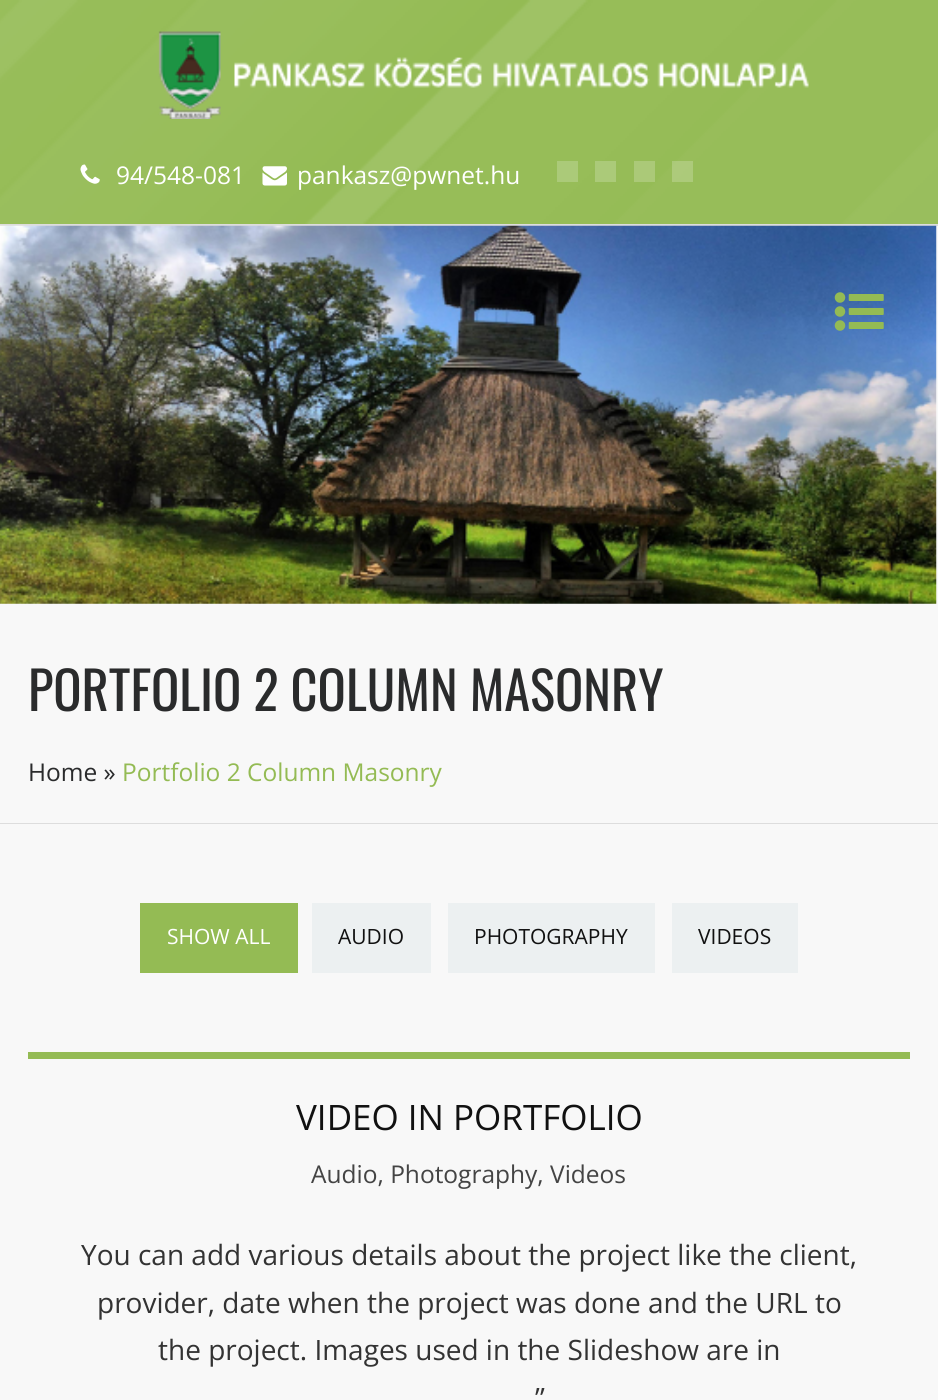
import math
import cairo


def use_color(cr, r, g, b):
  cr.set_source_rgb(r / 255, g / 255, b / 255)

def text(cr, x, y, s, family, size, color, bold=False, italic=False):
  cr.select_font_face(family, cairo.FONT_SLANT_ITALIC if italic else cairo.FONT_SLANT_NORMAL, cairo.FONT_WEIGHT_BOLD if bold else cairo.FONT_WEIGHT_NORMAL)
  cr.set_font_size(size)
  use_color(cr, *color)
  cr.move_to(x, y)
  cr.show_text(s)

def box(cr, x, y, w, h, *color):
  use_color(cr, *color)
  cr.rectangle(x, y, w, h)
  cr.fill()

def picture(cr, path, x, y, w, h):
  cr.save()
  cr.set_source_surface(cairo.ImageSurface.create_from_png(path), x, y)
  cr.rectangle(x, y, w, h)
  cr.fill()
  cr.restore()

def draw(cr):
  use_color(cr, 148, 187, 84)
  cr.paint()
  picture(cr, "img_01.png", 0, 0, 938, 224)
  picture(cr, "img_02.png", 158, 31, 651, 88)
  picture(cr, "img_03.png", 80, 164, 20, 20)
  picture(cr, "img_04.png", 262, 166, 25, 20)
  box(cr, 557, 161, 21, 21, 171, 202, 121)
  box(cr, 595, 161, 21, 21, 171, 202, 121)
  box(cr, 634, 161, 21, 21, 171, 201, 120)
  cr.set_source_rgba(1, 1, 1, 0.2)
  cr.rectangle(672, 161, 21, 21)
  cr.fill()
  box(cr, 0, 226, 938, 597, 248, 248, 248)
  box(cr, 0, 224, 938, 2, 221, 221, 221)
  picture(cr, "img_06.png", 0, 225, 937, 379)
  picture(cr, "img_05.png", 834, 292, 50, 39)
  box(cr, 0, 823, 938, 1, 221, 221, 221)
  box(cr, 0, 824, 938, 576, 248, 248, 248)
  box(cr, 140, 903, 158, 70, 148, 187, 84)
  box(cr, 312, 903, 119, 70, 236, 240, 241)
  box(cr, 448, 903, 207, 70, 236, 240, 241)
  box(cr, 672, 903, 126, 70, 236, 240, 241)
  box(cr, 28, 1052, 882, 7, 148, 187, 84)
  text(cr, 116, 184, "94/548-081", "Open Sans", 24.5, (255, 255, 255))
  text(cr, 297, 184, "pankasz@pwnet.hu", "Open Sans", 24.5, (255, 255, 255))
  text(cr, 28, 711, "PORTFOLIO 2 COLUMN MASONRY", "Oswald", 52.5, (42, 43, 44))
  text(cr, 28, 781, "Home »", "Open Sans", 24.5, (42, 43, 44))
  text(cr, 122, 781, "Portfolio 2 Column Masonry", "Open Sans", 24.5, (148, 187, 84))
  text(cr, 167, 944, "SHOW ALL", "Open Sans", 21, (255, 255, 255))
  text(cr, 338, 944, "AUDIO", "Open Sans", 21, (17, 17, 17))
  text(cr, 474, 944, "PHOTOGRAPHY", "Open Sans", 21, (17, 17, 17))
  text(cr, 698, 944, "VIDEOS", "Open Sans", 21, (17, 17, 17))
  text(cr, 296, 1130, "VIDEO IN PORTFOLIO", "Open Sans", 35, (17, 17, 17))
  text(cr, 311, 1183, "Audio, Photography, Videos", "Open Sans", 24.5, (68, 68, 68))
  text(cr, 81, 1265, "You can add various details about the project like the client,", "Open Sans", 28, (51, 51, 51))
  text(cr, 97, 1313, "provider, date when the project was done and the URL to", "Open Sans", 28, (51, 51, 51))
  text(cr, 158, 1360, "the project. Images used in the Slideshow are in", "Open Sans", 28, (51, 51, 51))
  text(cr, 535, 1408, "”", "Open Sans", 28, (51, 51, 51))


surface = cairo.ImageSurface(cairo.FORMAT_RGB24, 938, 1400)
cr = cairo.Context(surface)
options = cairo.FontOptions()
options.set_hint_metrics(cairo.HINT_METRICS_OFF)
options.set_hint_style(cairo.HINT_STYLE_NONE)
cr.set_font_options(options)
cr.set_miter_limit(4)
draw(cr)
surface.write_to_png("out.png")
